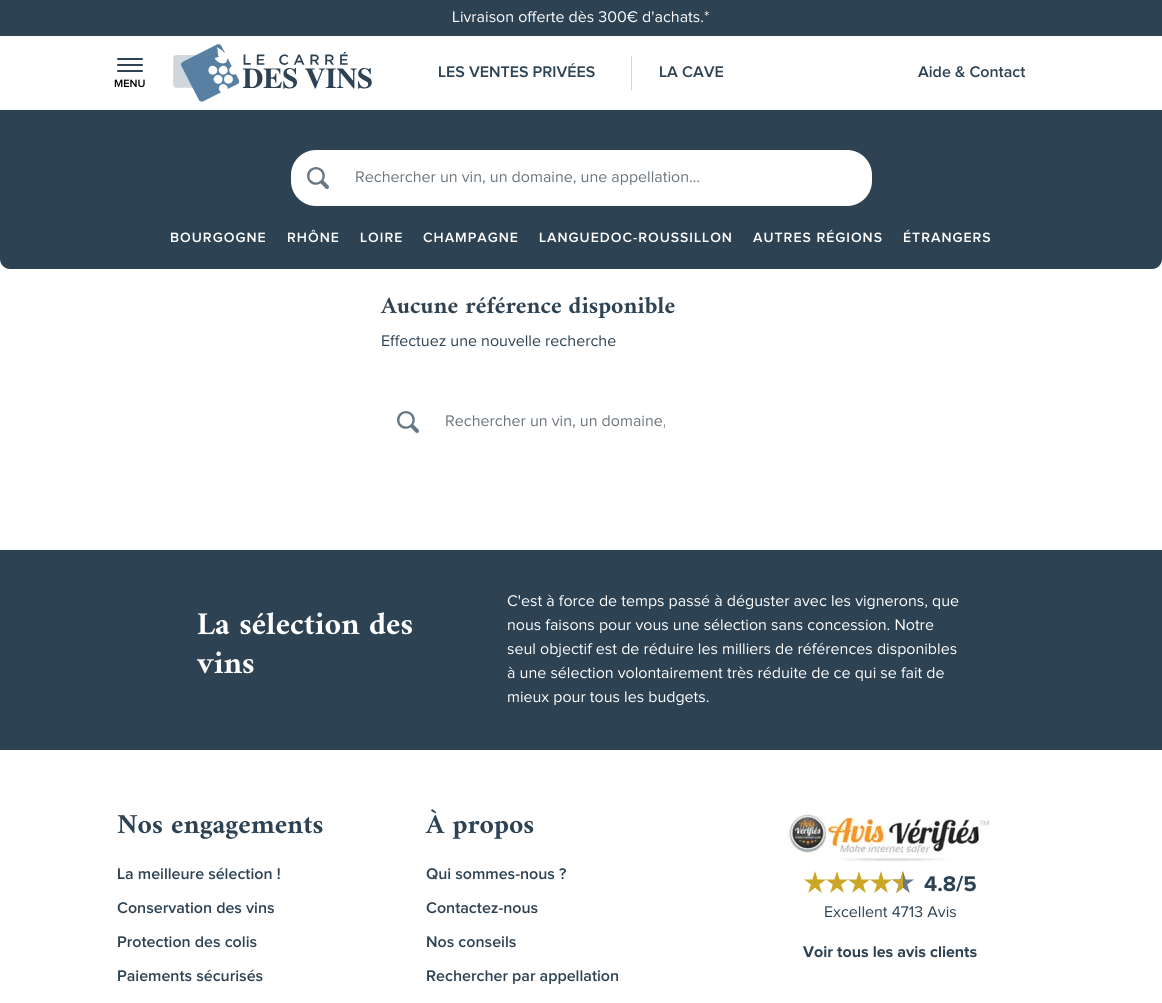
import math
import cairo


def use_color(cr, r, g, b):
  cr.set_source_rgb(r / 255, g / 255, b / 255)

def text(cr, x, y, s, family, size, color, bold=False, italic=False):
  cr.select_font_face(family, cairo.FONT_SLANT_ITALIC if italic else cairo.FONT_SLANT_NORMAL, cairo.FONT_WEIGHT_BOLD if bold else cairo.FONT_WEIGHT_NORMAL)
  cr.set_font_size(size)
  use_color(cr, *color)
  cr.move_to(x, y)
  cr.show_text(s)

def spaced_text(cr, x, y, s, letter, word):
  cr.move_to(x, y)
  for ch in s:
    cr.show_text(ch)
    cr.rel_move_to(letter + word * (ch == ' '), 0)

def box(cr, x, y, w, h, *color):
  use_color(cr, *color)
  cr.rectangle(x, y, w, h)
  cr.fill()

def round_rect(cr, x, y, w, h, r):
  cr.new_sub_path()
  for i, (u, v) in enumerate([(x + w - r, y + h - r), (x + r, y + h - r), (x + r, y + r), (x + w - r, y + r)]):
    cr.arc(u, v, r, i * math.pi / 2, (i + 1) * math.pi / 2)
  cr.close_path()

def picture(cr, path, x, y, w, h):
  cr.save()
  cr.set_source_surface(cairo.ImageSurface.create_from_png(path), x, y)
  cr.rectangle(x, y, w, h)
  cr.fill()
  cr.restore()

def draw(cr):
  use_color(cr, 255, 255, 255)
  cr.paint()
  box(cr, 0, 0, 1162, 36, 45, 66, 83)
  box(cr, 631, 56, 1, 34, 208, 214, 221)
  use_color(cr, 45, 66, 83)
  round_rect(cr, 117, 58, 26, 2, 1)
  cr.fill()
  round_rect(cr, 117, 64, 26, 2, 1)
  cr.fill()
  round_rect(cr, 117, 70, 26, 2, 1)
  cr.fill()
  picture(cr, "img_01.png", 173, 44, 199, 58)
  cr.new_path()
  cr.move_to(0, 110)
  cr.line_to(1162, 110)
  cr.line_to(1162, 259)
  cr.curve_to(1162, 264.5, 1157.5, 269, 1152, 269)
  cr.line_to(10, 269)
  cr.curve_to(4.5, 269, 0, 264.5, 0, 259)
  cr.close_path()
  cr.fill()
  use_color(cr, 255, 255, 255)
  round_rect(cr, 291, 150, 581, 56, 25)
  cr.fill()
  picture(cr, "img_02.png", 307, 167, 22, 22)
  picture(cr, "img_02.png", 397, 411, 22, 22)
  box(cr, 0, 550, 1162, 200, 45, 66, 83)
  picture(cr, "img_03.png", 787, 814, 202, 48)
  picture(cr, "img_04.png", 804, 871, 22, 22)
  picture(cr, "img_04.png", 826, 871, 22, 22)
  picture(cr, "img_04.png", 848, 871, 22, 22)
  picture(cr, "img_04.png", 870, 871, 22, 22)
  picture(cr, "img_05.png", 892, 871, 22, 22)
  text(cr, 452, 22, "Livraison offerte dès 300€ d'achats.*", "Proxima Nova", 16, (255, 255, 255))
  text(cr, 438, 77, "LES VENTES PRIVÉES", "Proxima Nova SemiBold", 16, (45, 66, 83))
  text(cr, 659, 77, "LA CAVE", "Proxima Nova SemiBold", 16, (45, 66, 83))
  text(cr, 918, 77, "Aide & Contact", "Proxima Nova SemiBold", 16, (45, 66, 83))
  text(cr, 114, 87, "MENU", "Proxima Nova SemiBold", 11, (0, 0, 0))
  text(cr, 355, 182, "Rechercher un vin, un domaine, une appellation…", "Proxima Nova", 16, (108, 117, 125))
  cr.select_font_face("Proxima Nova SemiBold")
  cr.set_font_size(14)
  use_color(cr, 255, 255, 255)
  spaced_text(cr, 170, 242, "BOURGOGNE", 1, 0)
  spaced_text(cr, 287, 242, "RHÔNE", 1, 0)
  spaced_text(cr, 360, 242, "LOIRE", 1, 0)
  spaced_text(cr, 423, 242, "CHAMPAGNE", 1, 0)
  spaced_text(cr, 539, 242, "LANGUEDOC-ROUSSILLON", 1, 0)
  spaced_text(cr, 753, 242, "AUTRES RÉGIONS", 1, 0)
  spaced_text(cr, 903, 242, "ÉTRANGERS", 1, 0)
  text(cr, 381, 313, "Aucune référence disponible", "Amiri", 23.9, (45, 66, 83), bold=True)
  text(cr, 381, 346, "Effectuez une nouvelle recherche", "Proxima Nova", 16, (45, 66, 83))
  cr.save()
  cr.rectangle(445, 412, 220, 19)
  cr.clip()
  text(cr, 445, 426, "Rechercher un vin, un domaine,", "Proxima Nova", 16, (108, 117, 125))
  cr.restore()
  text(cr, 197, 634, "La sélection des", "Amiri", 32, (255, 255, 255), bold=True)
  text(cr, 197, 673, "vins", "Amiri", 32, (255, 255, 255), bold=True)
  text(cr, 507, 606, "C'est à force de temps passé à déguster avec les vignerons, que", "Proxima Nova", 16, (255, 255, 255))
  text(cr, 507, 630, "nous faisons pour vous une sélection sans concession. Notre", "Proxima Nova", 16, (255, 255, 255))
  text(cr, 507, 654, "seul objectif est de réduire les milliers de références disponibles", "Proxima Nova", 16, (255, 255, 255))
  text(cr, 507, 678, "à une sélection volontairement très réduite de ce qui se fait de", "Proxima Nova", 16, (255, 255, 255))
  text(cr, 507, 702, "mieux pour tous les budgets.", "Proxima Nova", 16, (255, 255, 255))
  text(cr, 117, 833, "Nos engagements", "Amiri", 27.75, (45, 66, 83), bold=True)
  text(cr, 117, 879, "La meilleure sélection !", "Proxima Nova SemiBold", 16, (45, 66, 83))
  text(cr, 117, 913, "Conservation des vins", "Proxima Nova SemiBold", 16, (45, 66, 83))
  text(cr, 117, 947, "Protection des colis", "Proxima Nova SemiBold", 16, (45, 66, 83))
  text(cr, 117, 981, "Paiements sécurisés", "Proxima Nova SemiBold", 16, (45, 66, 83))
  text(cr, 426, 833, "À propos", "Amiri", 27.75, (45, 66, 83), bold=True)
  text(cr, 426, 879, "Qui sommes-nous ?", "Proxima Nova SemiBold", 16, (45, 66, 83))
  text(cr, 426, 913, "Contactez-nous", "Proxima Nova SemiBold", 16, (45, 66, 83))
  text(cr, 426, 947, "Nos conseils", "Proxima Nova SemiBold", 16, (45, 66, 83))
  text(cr, 426, 981, "Rechercher par appellation", "Proxima Nova SemiBold", 16, (45, 66, 83))
  text(cr, 924, 891, "4.8/5", "Proxima Nova", 22, (45, 66, 83), bold=True)
  text(cr, 824, 917, "Excellent 4713 Avis", "Proxima Nova", 16, (45, 66, 83))
  text(cr, 803, 957, "Voir tous les avis clients", "Proxima Nova", 16, (45, 66, 83), bold=True)


surface = cairo.ImageSurface(cairo.FORMAT_RGB24, 1162, 1003)
cr = cairo.Context(surface)
options = cairo.FontOptions()
options.set_hint_metrics(cairo.HINT_METRICS_OFF)
options.set_hint_style(cairo.HINT_STYLE_NONE)
cr.set_font_options(options)
cr.set_miter_limit(4)
draw(cr)
surface.write_to_png("out.png")
